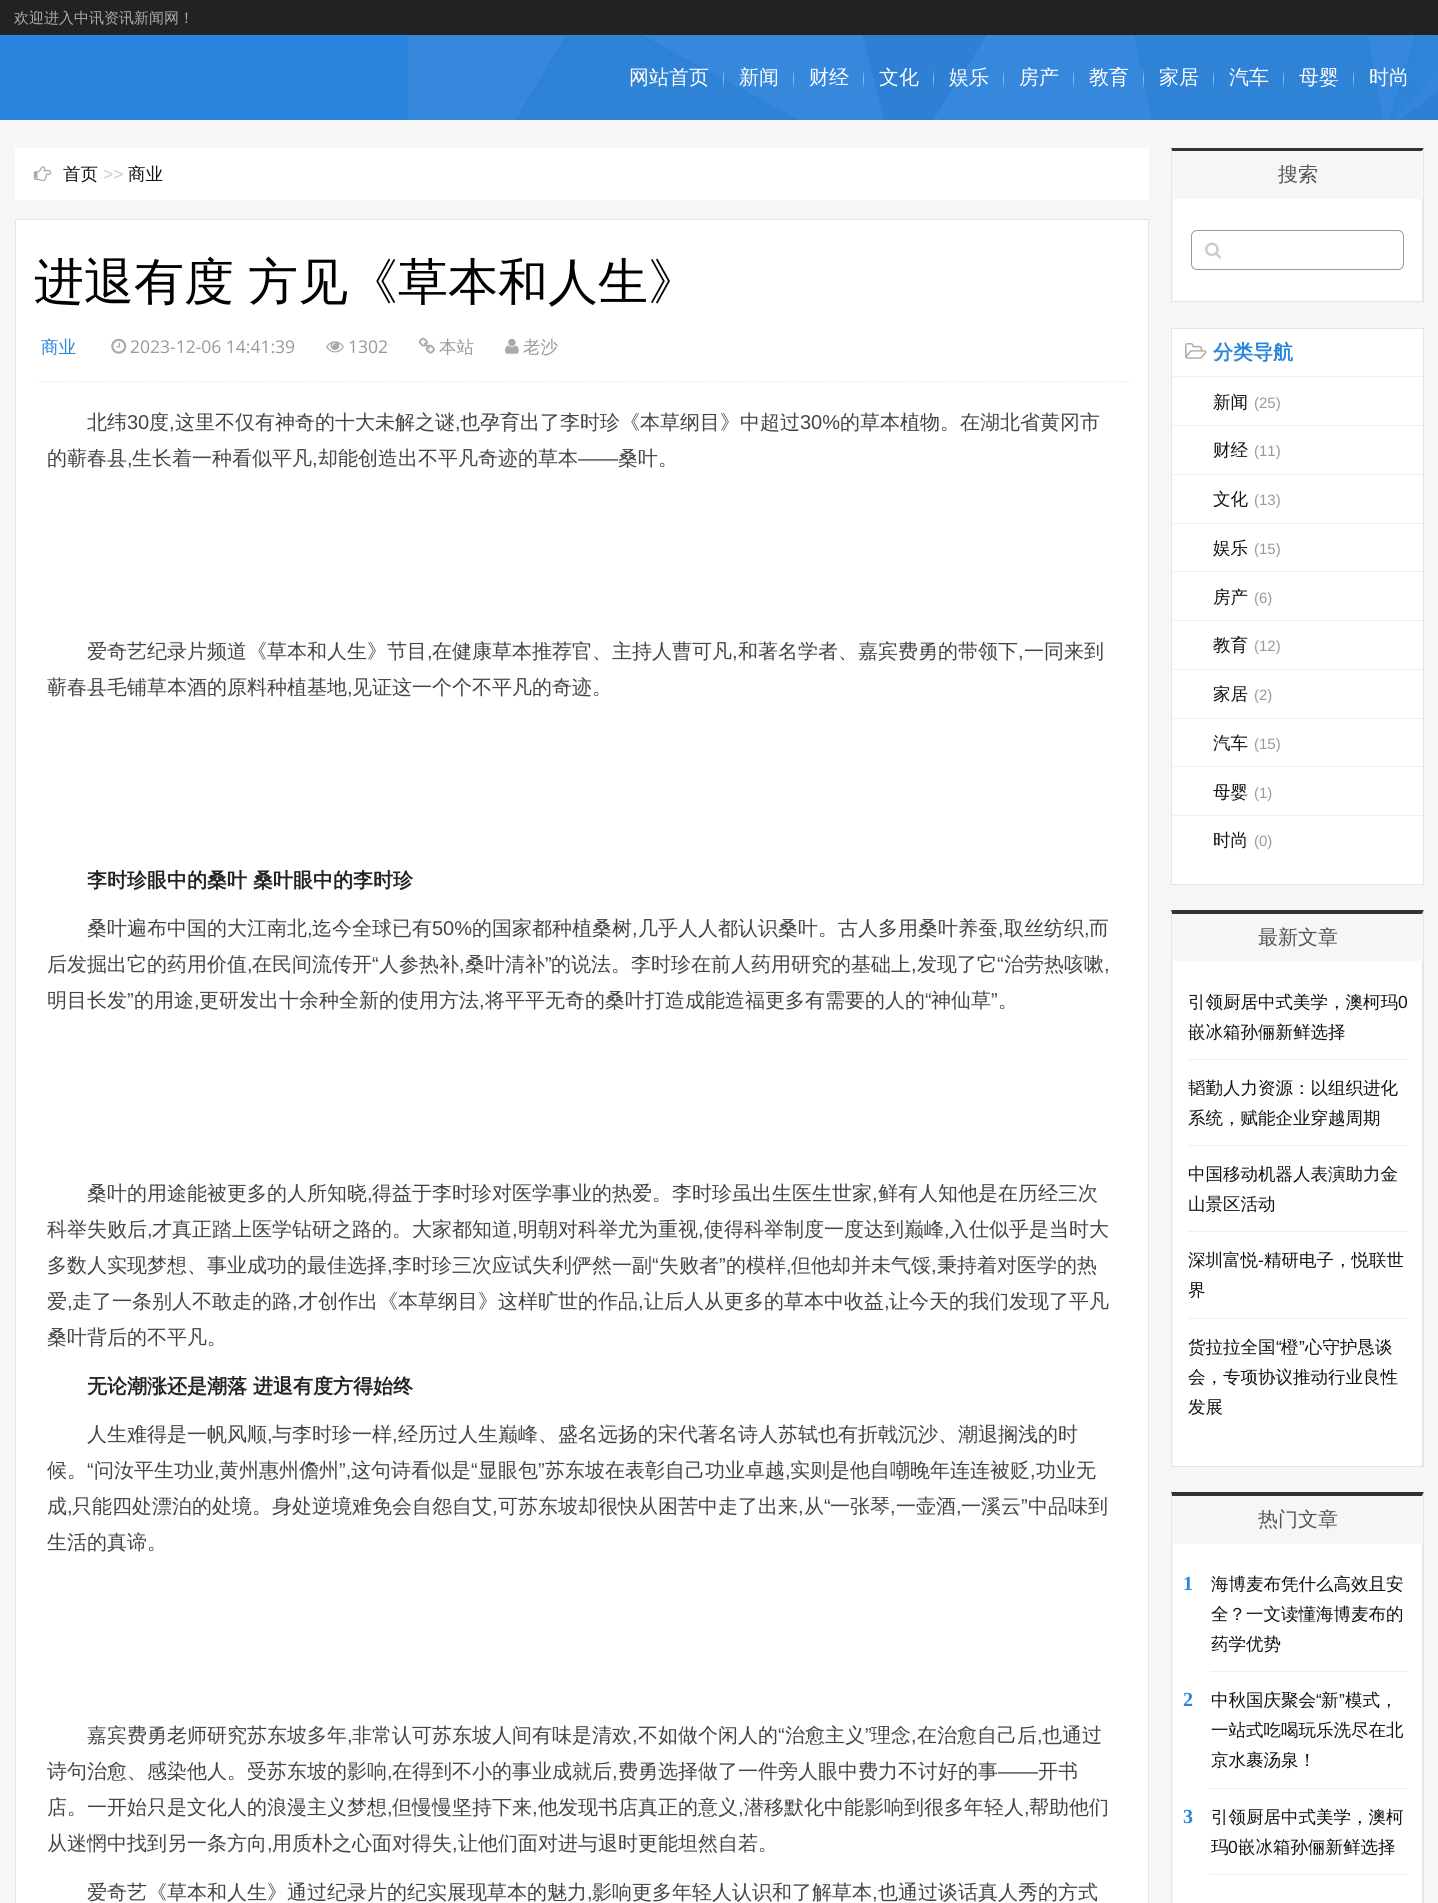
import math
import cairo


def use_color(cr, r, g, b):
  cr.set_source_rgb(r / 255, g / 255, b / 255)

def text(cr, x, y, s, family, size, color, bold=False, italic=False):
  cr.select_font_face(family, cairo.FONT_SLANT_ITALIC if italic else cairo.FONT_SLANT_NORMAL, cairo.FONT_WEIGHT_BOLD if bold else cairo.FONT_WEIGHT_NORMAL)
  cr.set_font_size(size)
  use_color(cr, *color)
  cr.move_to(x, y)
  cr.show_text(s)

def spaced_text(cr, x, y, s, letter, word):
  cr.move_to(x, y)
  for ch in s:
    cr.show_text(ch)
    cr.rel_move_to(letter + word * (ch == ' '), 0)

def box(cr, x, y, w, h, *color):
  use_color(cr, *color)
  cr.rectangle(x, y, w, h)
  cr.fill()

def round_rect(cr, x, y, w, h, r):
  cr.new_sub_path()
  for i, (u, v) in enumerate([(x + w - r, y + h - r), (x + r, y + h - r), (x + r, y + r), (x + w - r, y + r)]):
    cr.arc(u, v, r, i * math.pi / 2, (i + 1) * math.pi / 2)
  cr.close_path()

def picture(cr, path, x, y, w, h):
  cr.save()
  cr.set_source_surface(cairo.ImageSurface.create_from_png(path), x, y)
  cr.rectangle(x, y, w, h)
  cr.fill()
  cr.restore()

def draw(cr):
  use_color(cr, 246, 246, 246)
  cr.paint()
  box(cr, 0, 0, 1438, 35, 34, 34, 34)
  box(cr, 0, 35, 1438, 85, 41, 132, 222)
  picture(cr, "img_01.png", 408, 35, 1030, 85)
  gradient = cairo.LinearGradient(723, 69, 723, 89)
  gradient.add_color_stop_rgba(0, 1, 1, 1, 0)
  gradient.add_color_stop_rgba(0.5, 1, 1, 1, 0.5)
  gradient.add_color_stop_rgba(1, 1, 1, 1, 0)
  cr.set_source(gradient)
  cr.rectangle(723, 69, 1, 20)
  cr.fill()
  gradient = cairo.LinearGradient(793, 69, 793, 89)
  gradient.add_color_stop_rgba(0, 0.208, 0.533, 0.863, 1)
  gradient.add_color_stop_rgba(0.5, 0.604, 0.769, 0.929, 1)
  gradient.add_color_stop_rgba(1, 0.208, 0.533, 0.863, 1)
  cr.set_source(gradient)
  cr.rectangle(793, 69, 1, 20)
  cr.fill()
  gradient = cairo.LinearGradient(863, 69, 863, 89)
  gradient.add_color_stop_rgba(0, 0.208, 0.533, 0.863, 1)
  gradient.add_color_stop_rgba(0.5, 0.604, 0.769, 0.929, 1)
  gradient.add_color_stop_rgba(1, 0.208, 0.533, 0.863, 1)
  cr.set_source(gradient)
  cr.rectangle(863, 69, 1, 20)
  cr.fill()
  gradient = cairo.LinearGradient(933, 69, 933, 89)
  gradient.add_color_stop_rgba(0, 0.176, 0.502, 0.827, 1)
  gradient.add_color_stop_rgba(0.5, 0.588, 0.753, 0.914, 1)
  gradient.add_color_stop_rgba(1, 0.176, 0.502, 0.827, 1)
  cr.set_source(gradient)
  cr.rectangle(933, 69, 1, 20)
  cr.fill()
  gradient = cairo.LinearGradient(1003, 69, 1003, 89)
  gradient.add_color_stop_rgba(0, 0.208, 0.533, 0.863, 1)
  gradient.add_color_stop_rgba(0.5, 0.604, 0.769, 0.929, 1)
  gradient.add_color_stop_rgba(1, 0.208, 0.533, 0.863, 1)
  cr.set_source(gradient)
  cr.rectangle(1003, 69, 1, 20)
  cr.fill()
  gradient = cairo.LinearGradient(1073, 69, 1073, 89)
  gradient.add_color_stop_rgba(0, 0.208, 0.533, 0.863, 1)
  gradient.add_color_stop_rgba(0.5, 0.604, 0.769, 0.929, 1)
  gradient.add_color_stop_rgba(1, 0.208, 0.533, 0.863, 1)
  cr.set_source(gradient)
  cr.rectangle(1073, 69, 1, 20)
  cr.fill()
  gradient = cairo.LinearGradient(1143, 69, 1143, 89)
  gradient.add_color_stop_rgba(0, 1, 1, 1, 0)
  gradient.add_color_stop_rgba(0.5, 1, 1, 1, 0.5)
  gradient.add_color_stop_rgba(1, 1, 1, 1, 0)
  cr.set_source(gradient)
  cr.rectangle(1143, 69, 1, 20)
  cr.fill()
  gradient = cairo.LinearGradient(1213, 69, 1213, 89)
  gradient.add_color_stop_rgba(0, 0.184, 0.514, 0.839, 1)
  gradient.add_color_stop_rgba(0.5, 0.592, 0.757, 0.918, 1)
  gradient.add_color_stop_rgba(1, 0.184, 0.514, 0.839, 1)
  cr.set_source(gradient)
  cr.rectangle(1213, 69, 1, 20)
  cr.fill()
  gradient = cairo.LinearGradient(1283, 69, 1283, 89)
  gradient.add_color_stop_rgba(0, 0.184, 0.514, 0.839, 1)
  gradient.add_color_stop_rgba(0.5, 0.592, 0.757, 0.918, 1)
  gradient.add_color_stop_rgba(1, 0.184, 0.514, 0.839, 1)
  cr.set_source(gradient)
  cr.rectangle(1283, 69, 1, 20)
  cr.fill()
  gradient = cairo.LinearGradient(1353, 69, 1353, 89)
  gradient.add_color_stop_rgba(0, 0.184, 0.514, 0.839, 1)
  gradient.add_color_stop_rgba(0.5, 0.592, 0.757, 0.918, 1)
  gradient.add_color_stop_rgba(1, 0.184, 0.514, 0.839, 1)
  cr.set_source(gradient)
  cr.rectangle(1353, 69, 1, 20)
  cr.fill()
  box(cr, 15, 148, 1134, 52, 255, 255, 255)
  picture(cr, "img_02.png", 33, 166, 19, 16)
  cr.rectangle(15.5, 219.5, 1133, 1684)
  cr.fill_preserve()
  use_color(cr, 229, 229, 229)
  cr.set_line_width(1)
  cr.stroke()
  picture(cr, "img_03.png", 111, 338, 16, 16)
  picture(cr, "img_04.png", 326, 341, 18, 12)
  picture(cr, "img_05.png", 419, 337, 16, 17)
  picture(cr, "img_06.png", 505, 338, 14, 16)
  cr.new_path()
  cr.move_to(35, 382)
  cr.line_to(1129, 382)
  use_color(cr, 238, 238, 238)
  cr.set_line_width(1.2)
  cr.set_dash([1.25, 1.25])
  cr.stroke()
  box(cr, 1173, 199, 249, 102, 255, 255, 255)
  use_color(cr, 51, 51, 51)
  cr.new_path()
  cr.move_to(1171, 148)
  cr.line_to(1424, 148)
  cr.line_to(1422, 151)
  cr.line_to(1172, 151)
  cr.close_path()
  cr.fill()
  use_color(cr, 229, 229, 229)
  cr.new_path()
  cr.move_to(1424, 148)
  cr.line_to(1424, 302)
  cr.line_to(1422, 301)
  cr.line_to(1422, 151)
  cr.close_path()
  cr.fill()
  box(cr, 1171, 301, 253, 1, 229, 229, 229)
  cr.new_path()
  cr.move_to(1171, 302)
  cr.line_to(1171, 148)
  cr.line_to(1172, 151)
  cr.line_to(1172, 301)
  cr.close_path()
  cr.fill()
  box(cr, 1422, 151, 1, 48, 246, 246, 246)
  round_rect(cr, 1191.5, 230.5, 212, 39, 5.5)
  use_color(cr, 153, 153, 153)
  cr.set_line_width(1)
  cr.set_dash([])
  cr.stroke()
  picture(cr, "img_07.png", 1205, 242, 17, 17)
  use_color(cr, 255, 255, 255)
  cr.rectangle(1171.5, 328.5, 252, 556)
  cr.fill_preserve()
  use_color(cr, 229, 229, 229)
  cr.stroke()
  picture(cr, "img_08.png", 1185, 343, 22, 16)
  box(cr, 1173, 376, 250, 1, 238, 238, 238)
  box(cr, 1173, 425, 250, 1, 238, 238, 238)
  box(cr, 1173, 474, 250, 1, 238, 238, 238)
  box(cr, 1173, 523, 250, 1, 238, 238, 238)
  box(cr, 1173, 571, 250, 1, 238, 238, 238)
  box(cr, 1173, 620, 250, 1, 238, 238, 238)
  box(cr, 1173, 669, 250, 1, 238, 238, 238)
  box(cr, 1173, 718, 250, 1, 238, 238, 238)
  box(cr, 1173, 766, 250, 1, 238, 238, 238)
  box(cr, 1173, 815, 250, 1, 238, 238, 238)
  box(cr, 1173, 961, 249, 505, 255, 255, 255)
  use_color(cr, 51, 51, 51)
  cr.new_path()
  cr.move_to(1171, 910)
  cr.line_to(1424, 910)
  cr.line_to(1422, 914)
  cr.line_to(1172, 914)
  cr.close_path()
  cr.fill()
  use_color(cr, 229, 229, 229)
  cr.new_path()
  cr.move_to(1424, 910)
  cr.line_to(1424, 1468)
  cr.line_to(1422, 1466)
  cr.line_to(1422, 914)
  cr.close_path()
  cr.fill()
  box(cr, 1171, 1466, 253, 1, 229, 229, 229)
  cr.new_path()
  cr.move_to(1171, 1468)
  cr.line_to(1171, 910)
  cr.line_to(1172, 914)
  cr.line_to(1172, 1466)
  cr.close_path()
  cr.fill()
  box(cr, 1422, 914, 1, 47, 246, 246, 246)
  box(cr, 1188, 1059, 220, 1, 238, 238, 238)
  box(cr, 1188, 1145, 220, 1, 238, 238, 238)
  box(cr, 1188, 1231, 220, 1, 238, 238, 238)
  box(cr, 1188, 1318, 220, 1, 238, 238, 238)
  box(cr, 1173, 1544, 249, 359, 255, 255, 255)
  use_color(cr, 51, 51, 51)
  cr.new_path()
  cr.move_to(1171, 1492)
  cr.line_to(1424, 1492)
  cr.line_to(1422, 1496)
  cr.line_to(1172, 1496)
  cr.close_path()
  cr.fill()
  use_color(cr, 229, 229, 229)
  cr.new_path()
  cr.move_to(1424, 1492)
  cr.line_to(1424, 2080)
  cr.line_to(1422, 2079)
  cr.line_to(1422, 1496)
  cr.close_path()
  cr.fill()
  cr.new_path()
  cr.move_to(1171, 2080)
  cr.line_to(1171, 1492)
  cr.line_to(1172, 1496)
  cr.line_to(1172, 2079)
  cr.close_path()
  cr.fill()
  box(cr, 1422, 1496, 1, 48, 246, 246, 246)
  box(cr, 1210, 1671, 198, 1, 238, 238, 238)
  box(cr, 1210, 1788, 198, 1, 238, 238, 238)
  box(cr, 1210, 1874, 198, 1, 238, 238, 238)
  text(cr, 14, 23, "欢迎进入中讯资讯新闻网！", "WenQuanYi Zen Hei Medium", 15, (170, 170, 170))
  text(cr, 629, 84, "网站首页", "WenQuanYi Zen Hei Medium", 20, (255, 255, 255))
  text(cr, 739, 84, "新闻", "WenQuanYi Zen Hei Medium", 20, (255, 255, 255))
  text(cr, 809, 84, "财经", "WenQuanYi Zen Hei Medium", 20, (255, 255, 255))
  text(cr, 879, 84, "文化", "WenQuanYi Zen Hei Medium", 20, (255, 255, 255))
  text(cr, 949, 84, "娱乐", "WenQuanYi Zen Hei Medium", 20, (255, 255, 255))
  text(cr, 1019, 84, "房产", "WenQuanYi Zen Hei Medium", 20, (255, 255, 255))
  text(cr, 1089, 84, "教育", "WenQuanYi Zen Hei Medium", 20, (255, 255, 255))
  text(cr, 1159, 84, "家居", "WenQuanYi Zen Hei Medium", 20, (255, 255, 255))
  text(cr, 1229, 84, "汽车", "WenQuanYi Zen Hei Medium", 20, (255, 255, 255))
  text(cr, 1299, 84, "母婴", "WenQuanYi Zen Hei Medium", 20, (255, 255, 255))
  text(cr, 1369, 84, "时尚", "WenQuanYi Zen Hei Medium", 20, (255, 255, 255))
  text(cr, 63, 180, "首页", "WenQuanYi Zen Hei Medium", 17.5, (17, 17, 17))
  text(cr, 103, 180, ">>", "Liberation Sans", 17.5, (204, 204, 204))
  text(cr, 128, 180, "商业", "WenQuanYi Zen Hei Medium", 17.5, (17, 17, 17))
  cr.set_font_size(50)
  use_color(cr, 0, 0, 0)
  spaced_text(cr, 34, 299, "进退有度 方见《草本和人生》", 0, -1)
  text(cr, 41, 353, "商业", "WenQuanYi Zen Hei Medium", 17.5, (41, 132, 222))
  text(cr, 130, 353, "2023-12-06 14:41:39", "Open Sans", 17.5, (153, 153, 153))
  text(cr, 348, 353, "1302", "Open Sans", 17.5, (153, 153, 153))
  text(cr, 439, 353, "本站", "WenQuanYi Zen Hei Medium", 17.5, (153, 153, 153))
  text(cr, 523, 353, "老沙", "WenQuanYi Zen Hei Medium", 17.5, (153, 153, 153))
  text(cr, 87, 429, "北纬", "WenQuanYi Zen Hei Medium", 20, (68, 68, 68))
  text(cr, 127, 429, "30", "Liberation Sans", 20, (68, 68, 68))
  text(cr, 149, 429, "度", "WenQuanYi Zen Hei Medium", 20, (68, 68, 68))
  text(cr, 169, 429, ",", "Liberation Sans", 20, (68, 68, 68))
  text(cr, 175, 429, "这里不仅有神奇的十大未解之谜", "WenQuanYi Zen Hei Medium", 20, (68, 68, 68))
  text(cr, 455, 429, ",", "Liberation Sans", 20, (68, 68, 68))
  text(cr, 460, 429, "也孕育出了李时珍《本草纲目》中超过", "WenQuanYi Zen Hei Medium", 20, (68, 68, 68))
  text(cr, 800, 429, "30%", "Liberation Sans", 20, (68, 68, 68))
  text(cr, 840, 429, "的草本植物。在湖北省黄冈市", "WenQuanYi Zen Hei Medium", 20, (68, 68, 68))
  text(cr, 47, 465, "的蕲春县", "WenQuanYi Zen Hei Medium", 20, (68, 68, 68))
  text(cr, 132, 465, "生长着一种看似平凡", "WenQuanYi Zen Hei Medium", 20, (68, 68, 68))
  text(cr, 318, 465, "却能创造出不平凡奇迹的草本", "WenQuanYi Zen Hei Medium", 20, (68, 68, 68))
  text(cr, 578, 465, "——", "Liberation Sans", 20, (68, 68, 68))
  text(cr, 618, 465, "桑叶。", "WenQuanYi Zen Hei Medium", 20, (68, 68, 68))
  text(cr, 127, 465, ",", "Liberation Sans", 20, (68, 68, 68))
  text(cr, 312, 465, ",", "Liberation Sans", 20, (68, 68, 68))
  text(cr, 87, 658, "爱奇艺纪录片频道《草本和人生》节目", "WenQuanYi Zen Hei Medium", 20, (68, 68, 68))
  text(cr, 427, 658, ",", "Liberation Sans", 20, (68, 68, 68))
  text(cr, 432, 658, "在健康草本推荐官、主持人曹可凡", "WenQuanYi Zen Hei Medium", 20, (68, 68, 68))
  text(cr, 732, 658, ",", "Liberation Sans", 20, (68, 68, 68))
  text(cr, 738, 658, "和著名学者、嘉宾费勇的带领下", "WenQuanYi Zen Hei Medium", 20, (68, 68, 68))
  text(cr, 1018, 658, ",", "Liberation Sans", 20, (68, 68, 68))
  text(cr, 1024, 658, "一同来到", "WenQuanYi Zen Hei Medium", 20, (68, 68, 68))
  text(cr, 47, 694, "蕲春县毛铺草本酒的原料种植基地", "WenQuanYi Zen Hei Medium", 20, (68, 68, 68))
  text(cr, 347, 694, ",", "Liberation Sans", 20, (68, 68, 68))
  text(cr, 352, 694, "见证这一个个不平凡的奇迹。", "WenQuanYi Zen Hei Medium", 20, (68, 68, 68))
  text(cr, 87, 887, "李时珍眼中的桑叶 桑叶眼中的李时珍", "WenQuanYi Zen Hei", 20, (35, 35, 35), bold=True)
  text(cr, 87, 935, "桑叶遍布中国的大江南北", "WenQuanYi Zen Hei Medium", 20, (68, 68, 68))
  text(cr, 307, 935, ",", "Liberation Sans", 20, (68, 68, 68))
  text(cr, 312, 935, "迄今全球已有", "WenQuanYi Zen Hei Medium", 20, (68, 68, 68))
  text(cr, 432, 935, "50%", "Liberation Sans", 20, (68, 68, 68))
  text(cr, 472, 935, "的国家都种植桑树", "WenQuanYi Zen Hei Medium", 20, (68, 68, 68))
  text(cr, 632, 935, ",", "Liberation Sans", 20, (68, 68, 68))
  text(cr, 638, 935, "几乎人人都认识桑叶。古人多用桑叶养蚕", "WenQuanYi Zen Hei Medium", 20, (68, 68, 68))
  text(cr, 998, 935, ",", "Liberation Sans", 20, (68, 68, 68))
  text(cr, 1004, 935, "取丝纺织", "WenQuanYi Zen Hei Medium", 20, (68, 68, 68))
  text(cr, 1084, 935, ",", "Liberation Sans", 20, (68, 68, 68))
  text(cr, 1089, 935, "而", "WenQuanYi Zen Hei Medium", 20, (68, 68, 68))
  text(cr, 47, 971, "后发掘出它的药用价值", "WenQuanYi Zen Hei Medium", 20, (68, 68, 68))
  text(cr, 252, 971, "在民间流传开", "WenQuanYi Zen Hei Medium", 20, (68, 68, 68))
  text(cr, 372, 971, "“", "Liberation Sans", 20, (68, 68, 68))
  text(cr, 379, 971, "人参热补", "WenQuanYi Zen Hei Medium", 20, (68, 68, 68))
  text(cr, 465, 971, "桑叶清补", "WenQuanYi Zen Hei Medium", 20, (68, 68, 68))
  text(cr, 545, 971, "”", "Liberation Sans", 20, (68, 68, 68))
  text(cr, 551, 971, "的说法。李时珍在前人药用研究的基础上", "WenQuanYi Zen Hei Medium", 20, (68, 68, 68))
  text(cr, 917, 971, "发现了它", "WenQuanYi Zen Hei Medium", 20, (68, 68, 68))
  text(cr, 997, 971, "“", "Liberation Sans", 20, (68, 68, 68))
  text(cr, 1004, 971, "治劳热咳嗽", "WenQuanYi Zen Hei Medium", 20, (68, 68, 68))
  text(cr, 247, 971, ",", "Liberation Sans", 20, (68, 68, 68))
  text(cr, 459, 971, ",", "Liberation Sans", 20, (68, 68, 68))
  text(cr, 911, 971, ",", "Liberation Sans", 20, (68, 68, 68))
  text(cr, 1104, 971, ",", "Liberation Sans", 20, (68, 68, 68))
  text(cr, 47, 1007, "明目长发", "WenQuanYi Zen Hei Medium", 20, (68, 68, 68))
  text(cr, 127, 1007, "”", "Liberation Sans", 20, (68, 68, 68))
  text(cr, 134, 1007, "的用途", "WenQuanYi Zen Hei Medium", 20, (68, 68, 68))
  text(cr, 199, 1007, "更研发出十余种全新的使用方法", "WenQuanYi Zen Hei Medium", 20, (68, 68, 68))
  text(cr, 485, 1007, "将平平无奇的桑叶打造成能造福更多有需要的人的", "WenQuanYi Zen Hei Medium", 20, (68, 68, 68))
  text(cr, 925, 1007, "“", "Liberation Sans", 20, (68, 68, 68))
  text(cr, 931, 1007, "神仙草", "WenQuanYi Zen Hei Medium", 20, (68, 68, 68))
  text(cr, 991, 1007, "”", "Liberation Sans", 20, (68, 68, 68))
  text(cr, 194, 1007, ",", "Liberation Sans", 20, (68, 68, 68))
  text(cr, 479, 1007, ",", "Liberation Sans", 20, (68, 68, 68))
  text(cr, 998, 1007, "。", "WenQuanYi Zen Hei Medium", 20, (68, 68, 68))
  text(cr, 87, 1200, "桑叶的用途能被更多的人所知晓", "WenQuanYi Zen Hei Medium", 20, (68, 68, 68))
  text(cr, 367, 1200, ",", "Liberation Sans", 20, (68, 68, 68))
  text(cr, 372, 1200, "得益于李时珍对医学事业的热爱。李时珍虽出生医生世家", "WenQuanYi Zen Hei Medium", 20, (68, 68, 68))
  text(cr, 872, 1200, ",", "Liberation Sans", 20, (68, 68, 68))
  text(cr, 878, 1200, "鲜有人知他是在历经三次", "WenQuanYi Zen Hei Medium", 20, (68, 68, 68))
  text(cr, 47, 1236, "科举失败后", "WenQuanYi Zen Hei Medium", 20, (68, 68, 68))
  text(cr, 147, 1236, ",", "Liberation Sans", 20, (68, 68, 68))
  text(cr, 152, 1236, "才真正踏上医学钻研之路的。大家都知道", "WenQuanYi Zen Hei Medium", 20, (68, 68, 68))
  text(cr, 512, 1236, ",", "Liberation Sans", 20, (68, 68, 68))
  text(cr, 518, 1236, "明朝对科举尤为重视", "WenQuanYi Zen Hei Medium", 20, (68, 68, 68))
  text(cr, 698, 1236, ",", "Liberation Sans", 20, (68, 68, 68))
  text(cr, 704, 1236, "使得科举制度一度达到巅峰", "WenQuanYi Zen Hei Medium", 20, (68, 68, 68))
  text(cr, 944, 1236, ",", "Liberation Sans", 20, (68, 68, 68))
  text(cr, 949, 1236, "入仕似乎是当时大", "WenQuanYi Zen Hei Medium", 20, (68, 68, 68))
  text(cr, 47, 1272, "多数人实现梦想、事业成功的最佳选择", "WenQuanYi Zen Hei Medium", 20, (68, 68, 68))
  text(cr, 392, 1272, "李时珍三次应试失利俨然一副", "WenQuanYi Zen Hei Medium", 20, (68, 68, 68))
  text(cr, 652, 1272, "“", "Liberation Sans", 20, (68, 68, 68))
  text(cr, 659, 1272, "失败者", "WenQuanYi Zen Hei Medium", 20, (68, 68, 68))
  text(cr, 719, 1272, "”", "Liberation Sans", 20, (68, 68, 68))
  text(cr, 726, 1272, "的模样", "WenQuanYi Zen Hei Medium", 20, (68, 68, 68))
  text(cr, 791, 1272, "但他却并未气馁", "WenQuanYi Zen Hei Medium", 20, (68, 68, 68))
  text(cr, 937, 1272, "秉持着对医学的热", "WenQuanYi Zen Hei Medium", 20, (68, 68, 68))
  text(cr, 387, 1272, ",", "Liberation Sans", 20, (68, 68, 68))
  text(cr, 786, 1272, ",", "Liberation Sans", 20, (68, 68, 68))
  text(cr, 931, 1272, ",", "Liberation Sans", 20, (68, 68, 68))
  text(cr, 47, 1308, "爱", "WenQuanYi Zen Hei Medium", 20, (68, 68, 68))
  text(cr, 67, 1308, ",", "Liberation Sans", 20, (68, 68, 68))
  text(cr, 72, 1308, "走了一条别人不敢走的路", "WenQuanYi Zen Hei Medium", 20, (68, 68, 68))
  text(cr, 292, 1308, ",", "Liberation Sans", 20, (68, 68, 68))
  text(cr, 298, 1308, "才创作出《本草纲目》这样旷世的作品", "WenQuanYi Zen Hei Medium", 20, (68, 68, 68))
  text(cr, 638, 1308, ",", "Liberation Sans", 20, (68, 68, 68))
  text(cr, 644, 1308, "让后人从更多的草本中收益", "WenQuanYi Zen Hei Medium", 20, (68, 68, 68))
  text(cr, 884, 1308, ",", "Liberation Sans", 20, (68, 68, 68))
  text(cr, 889, 1308, "让今天的我们发现了平凡", "WenQuanYi Zen Hei Medium", 20, (68, 68, 68))
  text(cr, 47, 1344, "桑叶背后的不平凡。", "WenQuanYi Zen Hei Medium", 20, (68, 68, 68))
  text(cr, 87, 1393, "无论潮涨还是潮落 进退有度方得始终", "WenQuanYi Zen Hei", 20, (35, 35, 35), bold=True)
  text(cr, 87, 1441, "人生难得是一帆风顺", "WenQuanYi Zen Hei Medium", 20, (68, 68, 68))
  text(cr, 267, 1441, ",", "Liberation Sans", 20, (68, 68, 68))
  text(cr, 272, 1441, "与李时珍一样", "WenQuanYi Zen Hei Medium", 20, (68, 68, 68))
  text(cr, 392, 1441, ",", "Liberation Sans", 20, (68, 68, 68))
  text(cr, 398, 1441, "经历过人生巅峰、盛名远扬的宋代著名诗人苏轼也有折戟沉沙、潮退搁浅的时", "WenQuanYi Zen Hei Medium", 20, (68, 68, 68))
  text(cr, 47, 1477, "候。", "WenQuanYi Zen Hei Medium", 20, (68, 68, 68))
  text(cr, 87, 1477, "“", "Liberation Sans", 20, (68, 68, 68))
  text(cr, 94, 1477, "问汝平生功业", "WenQuanYi Zen Hei Medium", 20, (68, 68, 68))
  text(cr, 219, 1477, "黄州惠州儋州", "WenQuanYi Zen Hei Medium", 20, (68, 68, 68))
  text(cr, 339, 1477, "”,", "Liberation Sans", 20, (68, 68, 68))
  text(cr, 351, 1477, "这句诗看似是", "WenQuanYi Zen Hei Medium", 20, (68, 68, 68))
  text(cr, 471, 1477, "“", "Liberation Sans", 20, (68, 68, 68))
  text(cr, 478, 1477, "显眼包", "WenQuanYi Zen Hei Medium", 20, (68, 68, 68))
  text(cr, 538, 1477, "”", "Liberation Sans", 20, (68, 68, 68))
  text(cr, 545, 1477, "苏东坡在表彰自己功业卓越", "WenQuanYi Zen Hei Medium", 20, (68, 68, 68))
  text(cr, 790, 1477, "实则是他自嘲晚年连连被贬", "WenQuanYi Zen Hei Medium", 20, (68, 68, 68))
  text(cr, 1036, 1477, "功业无", "WenQuanYi Zen Hei Medium", 20, (68, 68, 68))
  text(cr, 214, 1477, ",", "Liberation Sans", 20, (68, 68, 68))
  text(cr, 785, 1477, ",", "Liberation Sans", 20, (68, 68, 68))
  text(cr, 1030, 1477, ",", "Liberation Sans", 20, (68, 68, 68))
  text(cr, 47, 1513, "成", "WenQuanYi Zen Hei Medium", 20, (68, 68, 68))
  text(cr, 72, 1513, "只能四处漂泊的处境。身处逆境难免会自怨自艾", "WenQuanYi Zen Hei Medium", 20, (68, 68, 68))
  text(cr, 498, 1513, "可苏东坡却很快从困苦中走了出来", "WenQuanYi Zen Hei Medium", 20, (68, 68, 68))
  text(cr, 804, 1513, "从", "WenQuanYi Zen Hei Medium", 20, (68, 68, 68))
  text(cr, 824, 1513, "“", "Liberation Sans", 20, (68, 68, 68))
  text(cr, 830, 1513, "一张琴", "WenQuanYi Zen Hei Medium", 20, (68, 68, 68))
  text(cr, 896, 1513, "一壶酒", "WenQuanYi Zen Hei Medium", 20, (68, 68, 68))
  text(cr, 961, 1513, "一溪云", "WenQuanYi Zen Hei Medium", 20, (68, 68, 68))
  text(cr, 1021, 1513, "”", "Liberation Sans", 20, (68, 68, 68))
  text(cr, 1028, 1513, "中品味到", "WenQuanYi Zen Hei Medium", 20, (68, 68, 68))
  text(cr, 67, 1513, ",", "Liberation Sans", 20, (68, 68, 68))
  text(cr, 492, 1513, ",", "Liberation Sans", 20, (68, 68, 68))
  text(cr, 798, 1513, ",", "Liberation Sans", 20, (68, 68, 68))
  text(cr, 890, 1513, ",", "Liberation Sans", 20, (68, 68, 68))
  text(cr, 956, 1513, ",", "Liberation Sans", 20, (68, 68, 68))
  text(cr, 47, 1549, "生活的真谛。", "WenQuanYi Zen Hei Medium", 20, (68, 68, 68))
  text(cr, 87, 1742, "嘉宾费勇老师研究苏东坡多年", "WenQuanYi Zen Hei Medium", 20, (68, 68, 68))
  text(cr, 352, 1742, "非常认可苏东坡人间有味是清欢", "WenQuanYi Zen Hei Medium", 20, (68, 68, 68))
  text(cr, 638, 1742, "不如做个闲人的", "WenQuanYi Zen Hei Medium", 20, (68, 68, 68))
  text(cr, 778, 1742, "“", "Liberation Sans", 20, (68, 68, 68))
  text(cr, 785, 1742, "治愈主义", "WenQuanYi Zen Hei Medium", 20, (68, 68, 68))
  text(cr, 865, 1742, "”", "Liberation Sans", 20, (68, 68, 68))
  text(cr, 871, 1742, "理念", "WenQuanYi Zen Hei Medium", 20, (68, 68, 68))
  text(cr, 917, 1742, "在治愈自己后", "WenQuanYi Zen Hei Medium", 20, (68, 68, 68))
  text(cr, 1042, 1742, "也通过", "WenQuanYi Zen Hei Medium", 20, (68, 68, 68))
  text(cr, 347, 1742, ",", "Liberation Sans", 20, (68, 68, 68))
  text(cr, 632, 1742, ",", "Liberation Sans", 20, (68, 68, 68))
  text(cr, 911, 1742, ",", "Liberation Sans", 20, (68, 68, 68))
  text(cr, 1037, 1742, ",", "Liberation Sans", 20, (68, 68, 68))
  text(cr, 47, 1778, "诗句治愈、感染他人。受苏东坡的影响", "WenQuanYi Zen Hei Medium", 20, (68, 68, 68))
  text(cr, 392, 1778, "在得到不小的事业成就后", "WenQuanYi Zen Hei Medium", 20, (68, 68, 68))
  text(cr, 618, 1778, "费勇选择做了一件旁人眼中费力不讨好的事", "WenQuanYi Zen Hei Medium", 20, (68, 68, 68))
  text(cr, 998, 1778, "——", "Liberation Sans", 20, (68, 68, 68))
  text(cr, 1038, 1778, "开书", "WenQuanYi Zen Hei Medium", 20, (68, 68, 68))
  text(cr, 387, 1778, ",", "Liberation Sans", 20, (68, 68, 68))
  text(cr, 612, 1778, ",", "Liberation Sans", 20, (68, 68, 68))
  text(cr, 47, 1814, "店。一开始只是文化人的浪漫主义梦想", "WenQuanYi Zen Hei Medium", 20, (68, 68, 68))
  text(cr, 387, 1814, ",", "Liberation Sans", 20, (68, 68, 68))
  text(cr, 392, 1814, "但慢慢坚持下来", "WenQuanYi Zen Hei Medium", 20, (68, 68, 68))
  text(cr, 532, 1814, ",", "Liberation Sans", 20, (68, 68, 68))
  text(cr, 538, 1814, "他发现书店真正的意义", "WenQuanYi Zen Hei Medium", 20, (68, 68, 68))
  text(cr, 738, 1814, ",", "Liberation Sans", 20, (68, 68, 68))
  text(cr, 744, 1814, "潜移默化中能影响到很多年轻人", "WenQuanYi Zen Hei Medium", 20, (68, 68, 68))
  text(cr, 1024, 1814, ",", "Liberation Sans", 20, (68, 68, 68))
  text(cr, 1029, 1814, "帮助他们", "WenQuanYi Zen Hei Medium", 20, (68, 68, 68))
  text(cr, 47, 1850, "从迷惘中找到另一条方向", "WenQuanYi Zen Hei Medium", 20, (68, 68, 68))
  text(cr, 267, 1850, ",", "Liberation Sans", 20, (68, 68, 68))
  text(cr, 272, 1850, "用质朴之心面对得失", "WenQuanYi Zen Hei Medium", 20, (68, 68, 68))
  text(cr, 452, 1850, ",", "Liberation Sans", 20, (68, 68, 68))
  text(cr, 458, 1850, "让他们面对进与退时更能坦然自若。", "WenQuanYi Zen Hei Medium", 20, (68, 68, 68))
  text(cr, 87, 1899, "爱奇艺《草本和人生》通过纪录片的纪实展现草本的魅力", "WenQuanYi Zen Hei Medium", 20, (68, 68, 68))
  text(cr, 587, 1899, ",", "Liberation Sans", 20, (68, 68, 68))
  text(cr, 592, 1899, "影响更多年轻人认识和了解草本", "WenQuanYi Zen Hei Medium", 20, (68, 68, 68))
  text(cr, 872, 1899, ",", "Liberation Sans", 20, (68, 68, 68))
  text(cr, 878, 1899, "也通过谈话真人秀的方式", "WenQuanYi Zen Hei Medium", 20, (68, 68, 68))
  text(cr, 1278, 181, "搜索", "WenQuanYi Zen Hei Medium", 20, (85, 85, 85))
  text(cr, 1213, 359, "分类导航", "WenQuanYi Zen Hei", 20, (41, 132, 222), bold=True)
  text(cr, 1213, 408, "新闻", "WenQuanYi Zen Hei Medium", 17.5, (17, 17, 17))
  text(cr, 1254, 408, "(25)", "Liberation Sans", 15, (153, 153, 153))
  text(cr, 1213, 456, "财经", "WenQuanYi Zen Hei Medium", 17.5, (17, 17, 17))
  text(cr, 1254, 456, "(11)", "Liberation Sans", 15, (153, 153, 153))
  text(cr, 1213, 505, "文化", "WenQuanYi Zen Hei Medium", 17.5, (17, 17, 17))
  text(cr, 1254, 505, "(13)", "Liberation Sans", 15, (153, 153, 153))
  text(cr, 1213, 554, "娱乐", "WenQuanYi Zen Hei Medium", 17.5, (17, 17, 17))
  text(cr, 1254, 554, "(15)", "Liberation Sans", 15, (153, 153, 153))
  text(cr, 1213, 603, "房产", "WenQuanYi Zen Hei Medium", 17.5, (17, 17, 17))
  text(cr, 1254, 603, "(6)", "Liberation Sans", 15, (153, 153, 153))
  text(cr, 1213, 651, "教育", "WenQuanYi Zen Hei Medium", 17.5, (17, 17, 17))
  text(cr, 1254, 651, "(12)", "Liberation Sans", 15, (153, 153, 153))
  text(cr, 1213, 700, "家居", "WenQuanYi Zen Hei Medium", 17.5, (17, 17, 17))
  text(cr, 1254, 700, "(2)", "Liberation Sans", 15, (153, 153, 153))
  text(cr, 1213, 749, "汽车", "WenQuanYi Zen Hei Medium", 17.5, (17, 17, 17))
  text(cr, 1254, 749, "(15)", "Liberation Sans", 15, (153, 153, 153))
  text(cr, 1213, 798, "母婴", "WenQuanYi Zen Hei Medium", 17.5, (17, 17, 17))
  text(cr, 1254, 798, "(1)", "Liberation Sans", 15, (153, 153, 153))
  text(cr, 1213, 846, "时尚", "WenQuanYi Zen Hei Medium", 17.5, (17, 17, 17))
  text(cr, 1254, 846, "(0)", "Liberation Sans", 15, (153, 153, 153))
  text(cr, 1258, 944, "最新文章", "WenQuanYi Zen Hei Medium", 20, (85, 85, 85))
  text(cr, 1188, 1008, "引领厨居中式美学，澳柯玛", "WenQuanYi Zen Hei Medium", 17.5, (17, 17, 17))
  text(cr, 1398, 1008, "0", "Liberation Sans", 17.5, (17, 17, 17))
  text(cr, 1188, 1038, "嵌冰箱孙俪新鲜选择", "WenQuanYi Zen Hei Medium", 17.5, (17, 17, 17))
  text(cr, 1188, 1094, "韬勤人力资源：以组织进化", "WenQuanYi Zen Hei Medium", 17.5, (17, 17, 17))
  text(cr, 1188, 1124, "系统，赋能企业穿越周期", "WenQuanYi Zen Hei Medium", 17.5, (17, 17, 17))
  text(cr, 1188, 1180, "中国移动机器人表演助力金", "WenQuanYi Zen Hei Medium", 17.5, (17, 17, 17))
  text(cr, 1188, 1210, "山景区活动", "WenQuanYi Zen Hei Medium", 17.5, (17, 17, 17))
  text(cr, 1188, 1266, "深圳富悦", "WenQuanYi Zen Hei Medium", 17.5, (17, 17, 17))
  text(cr, 1258, 1266, "-", "Liberation Sans", 17.5, (17, 17, 17))
  text(cr, 1264, 1266, "精研电子，悦联世", "WenQuanYi Zen Hei Medium", 17.5, (17, 17, 17))
  text(cr, 1188, 1296, "界", "WenQuanYi Zen Hei Medium", 17.5, (17, 17, 17))
  text(cr, 1188, 1353, "货拉拉全国", "WenQuanYi Zen Hei Medium", 17.5, (17, 17, 17))
  text(cr, 1276, 1353, "“", "Liberation Sans", 17.5, (17, 17, 17))
  text(cr, 1281, 1353, "橙", "WenQuanYi Zen Hei Medium", 17.5, (17, 17, 17))
  text(cr, 1299, 1353, "”", "Liberation Sans", 17.5, (17, 17, 17))
  text(cr, 1305, 1353, "心守护恳谈", "WenQuanYi Zen Hei Medium", 17.5, (17, 17, 17))
  text(cr, 1188, 1383, "会，专项协议推动行业良性", "WenQuanYi Zen Hei Medium", 17.5, (17, 17, 17))
  text(cr, 1188, 1413, "发展", "WenQuanYi Zen Hei Medium", 17.5, (17, 17, 17))
  text(cr, 1258, 1526, "热门文章", "WenQuanYi Zen Hei Medium", 20, (85, 85, 85))
  text(cr, 1183, 1590, "1", "Liberation Serif", 20, (41, 132, 222), bold=True)
  text(cr, 1211, 1590, "海博麦布凭什么高效且安", "WenQuanYi Zen Hei Medium", 17.5, (17, 17, 17))
  text(cr, 1211, 1620, "全？一文读懂海博麦布的", "WenQuanYi Zen Hei Medium", 17.5, (17, 17, 17))
  text(cr, 1211, 1650, "药学优势", "WenQuanYi Zen Hei Medium", 17.5, (17, 17, 17))
  text(cr, 1183, 1706, "2", "Liberation Serif", 20, (41, 132, 222), bold=True)
  text(cr, 1211, 1706, "中秋国庆聚会", "WenQuanYi Zen Hei Medium", 17.5, (17, 17, 17))
  text(cr, 1316, 1706, "“", "Liberation Sans", 17.5, (17, 17, 17))
  text(cr, 1321, 1706, "新", "WenQuanYi Zen Hei Medium", 17.5, (17, 17, 17))
  text(cr, 1339, 1706, "”", "Liberation Sans", 17.5, (17, 17, 17))
  text(cr, 1345, 1706, "模式，", "WenQuanYi Zen Hei Medium", 17.5, (17, 17, 17))
  text(cr, 1211, 1736, "一站式吃喝玩乐洗尽在北", "WenQuanYi Zen Hei Medium", 17.5, (17, 17, 17))
  text(cr, 1211, 1766, "京水裹汤泉！", "WenQuanYi Zen Hei Medium", 17.5, (17, 17, 17))
  text(cr, 1183, 1823, "3", "Liberation Serif", 20, (41, 132, 222), bold=True)
  text(cr, 1211, 1823, "引领厨居中式美学，澳柯", "WenQuanYi Zen Hei Medium", 17.5, (17, 17, 17))
  text(cr, 1211, 1853, "玛", "WenQuanYi Zen Hei Medium", 17.5, (17, 17, 17))
  text(cr, 1228, 1853, "0", "Liberation Sans", 17.5, (17, 17, 17))
  text(cr, 1238, 1853, "嵌冰箱孙俪新鲜选择", "WenQuanYi Zen Hei Medium", 17.5, (17, 17, 17))


surface = cairo.ImageSurface(cairo.FORMAT_RGB24, 1438, 1903)
cr = cairo.Context(surface)
options = cairo.FontOptions()
options.set_hint_metrics(cairo.HINT_METRICS_OFF)
options.set_hint_style(cairo.HINT_STYLE_NONE)
cr.set_font_options(options)
cr.set_miter_limit(4)
draw(cr)
surface.write_to_png("out.png")
